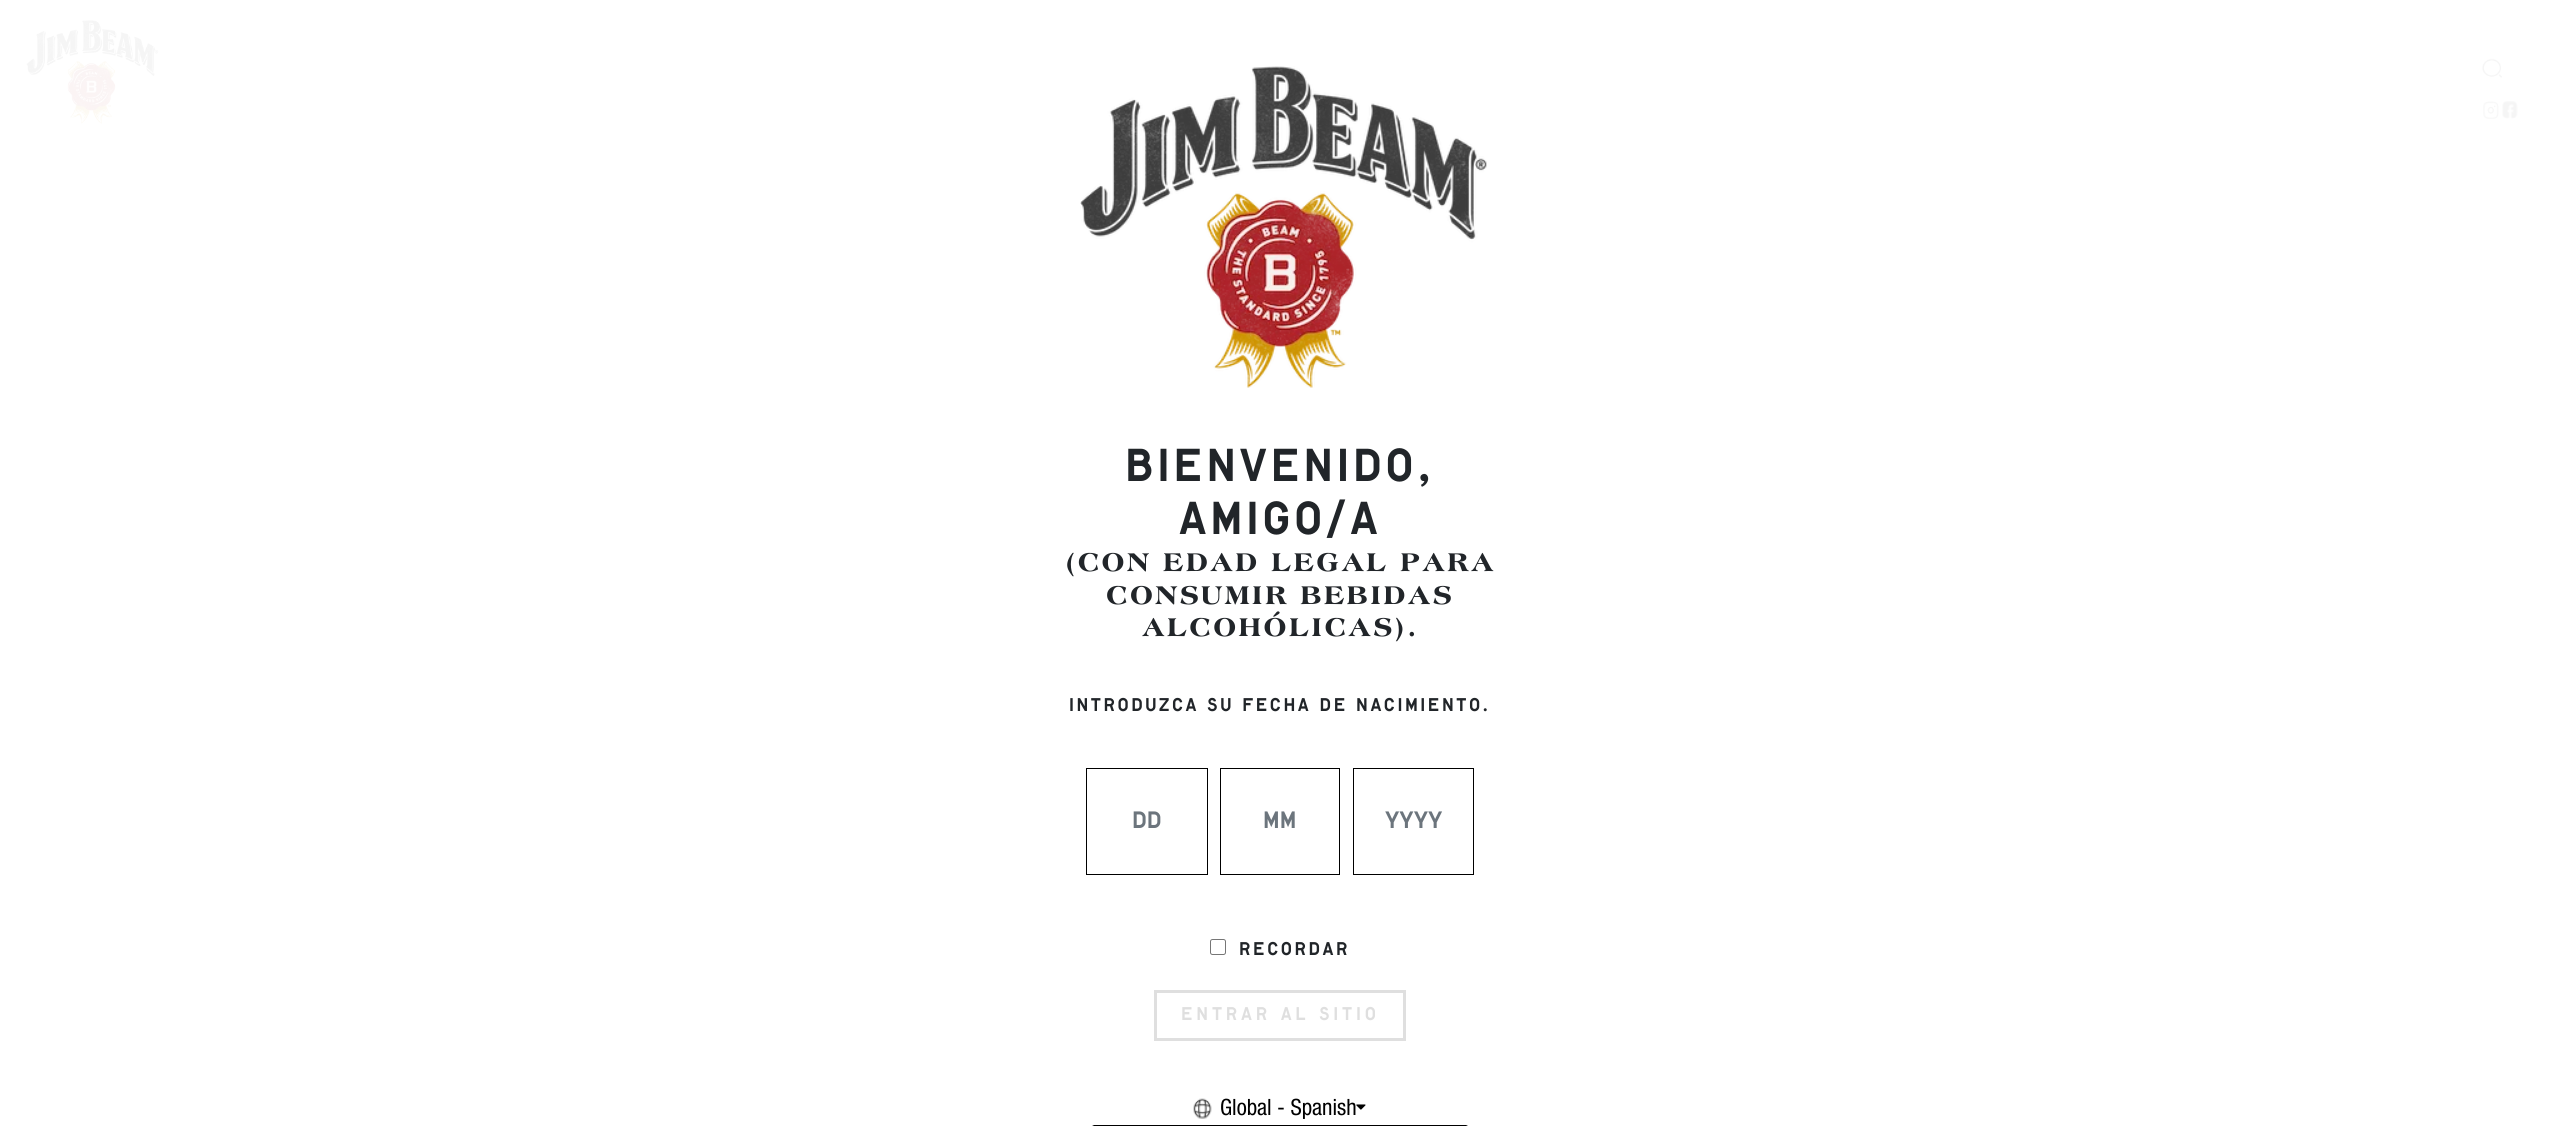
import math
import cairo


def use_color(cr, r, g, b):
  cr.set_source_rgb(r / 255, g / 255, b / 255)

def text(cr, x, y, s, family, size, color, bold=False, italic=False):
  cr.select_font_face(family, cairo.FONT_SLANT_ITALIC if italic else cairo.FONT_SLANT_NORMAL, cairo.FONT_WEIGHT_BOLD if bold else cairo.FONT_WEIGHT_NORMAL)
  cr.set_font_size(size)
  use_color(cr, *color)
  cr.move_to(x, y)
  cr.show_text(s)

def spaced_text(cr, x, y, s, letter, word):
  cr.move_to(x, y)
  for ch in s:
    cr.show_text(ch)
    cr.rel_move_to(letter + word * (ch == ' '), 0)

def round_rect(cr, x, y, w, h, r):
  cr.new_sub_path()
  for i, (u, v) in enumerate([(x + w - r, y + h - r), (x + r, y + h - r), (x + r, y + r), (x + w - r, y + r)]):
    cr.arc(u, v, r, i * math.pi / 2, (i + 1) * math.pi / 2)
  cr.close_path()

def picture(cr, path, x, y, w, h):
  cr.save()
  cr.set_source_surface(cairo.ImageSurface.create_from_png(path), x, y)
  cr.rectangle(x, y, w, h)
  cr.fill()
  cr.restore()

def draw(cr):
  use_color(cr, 255, 255, 255)
  cr.paint()
  picture(cr, "img_01.png", 26, 20, 133, 104)
  picture(cr, "img_02.png", 2482, 58, 21, 20)
  picture(cr, "img_03.png", 2483, 101, 16, 18)
  picture(cr, "img_04.png", 2502, 101, 16, 18)
  picture(cr, "img_05.png", 1080, 66, 407, 322)
  cr.rectangle(1086.5, 768.5, 121, 106)
  use_color(cr, 0, 0, 0)
  cr.set_line_width(1)
  cr.stroke()
  cr.rectangle(1220.5, 768.5, 119, 106)
  cr.stroke()
  cr.rectangle(1353.5, 768.5, 120, 106)
  cr.stroke()
  round_rect(cr, 1210.5, 939.5, 15, 15, 2)
  use_color(cr, 118, 118, 118)
  cr.stroke()
  cr.rectangle(1155.5, 991.5, 249, 48)
  use_color(cr, 223, 223, 223)
  cr.set_line_width(3)
  cr.stroke()
  use_color(cr, 0, 0, 0)
  cr.new_path()
  cr.move_to(1468, 1126)
  cr.line_to(1092, 1126)
  cr.line_to(1094, 1125)
  cr.line_to(1466, 1125)
  cr.close_path()
  cr.fill()
  picture(cr, "img_06.png", 1193, 1098, 19, 21)
  picture(cr, "img_07.png", 1356, 1104, 10, 6)
  cr.select_font_face("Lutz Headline")
  cr.set_font_size(43.75)
  use_color(cr, 33, 37, 41)
  spaced_text(cr, 1125, 481, "BIENVENIDO,", 3.75, 0)
  spaced_text(cr, 1179, 534, "AMIGO/A", 3.75, 0)
  cr.select_font_face("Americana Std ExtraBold")
  cr.set_font_size(27.5)
  spaced_text(cr, 1065, 571, "(CON EDAD LEGAL PARA", 2.5, 0)
  spaced_text(cr, 1106, 604, "CONSUMIR BEBIDAS", 2.5, 0)
  spaced_text(cr, 1142, 636, "ALCOHÓLICAS).", 2.5, 0)
  cr.select_font_face("Lutz Headline")
  cr.set_font_size(17.5)
  spaced_text(cr, 1069, 711, "INTRODUZCA SU FECHA DE NACIMIENTO.", 2.5, 0)
  text(cr, 1132, 828, "DD", "Lutz Headline", 22.5, (108, 117, 125))
  text(cr, 1263, 828, "MM", "Lutz Headline", 22.5, (108, 117, 125))
  text(cr, 1385, 828, "YYYY", "Lutz Headline", 22.5, (108, 117, 125))
  cr.set_font_size(17.5)
  use_color(cr, 33, 37, 41)
  spaced_text(cr, 1239, 955, "Recordar", 2.5, 0)
  use_color(cr, 223, 223, 223)
  spaced_text(cr, 1181, 1020, "ENTRAR AL SITIO", 3.75, 0)
  text(cr, 1220, 1115, "Global - Spanish", "Helvetica Neue", 22.5, (0, 0, 0), italic=True)


surface = cairo.ImageSurface(cairo.FORMAT_RGB24, 2559, 1143)
cr = cairo.Context(surface)
options = cairo.FontOptions()
options.set_hint_metrics(cairo.HINT_METRICS_OFF)
options.set_hint_style(cairo.HINT_STYLE_NONE)
cr.set_font_options(options)
cr.set_miter_limit(4)
draw(cr)
surface.write_to_png("out.png")
